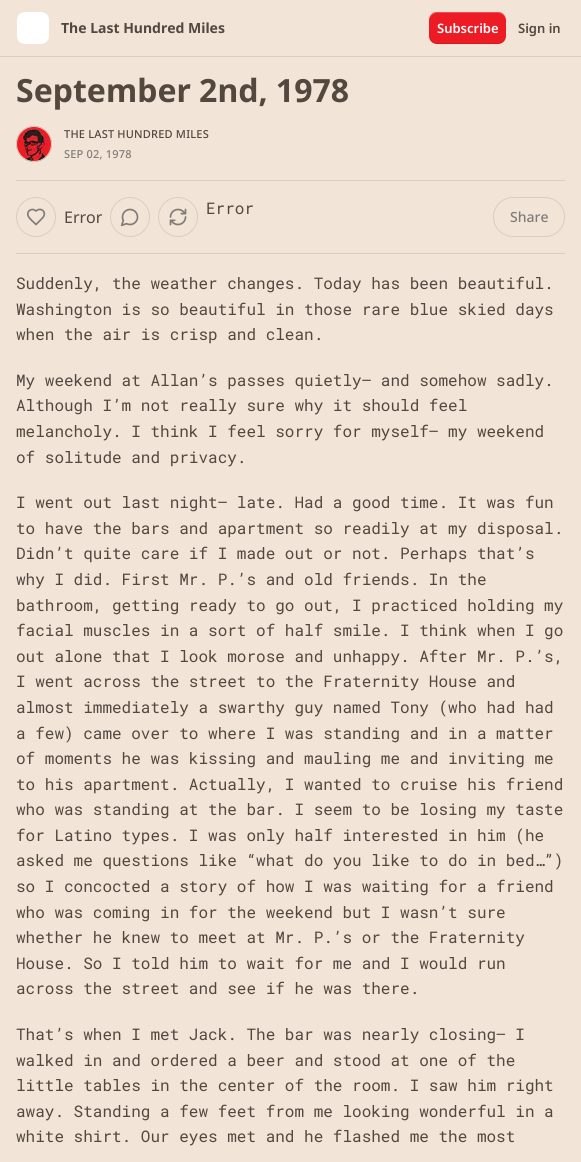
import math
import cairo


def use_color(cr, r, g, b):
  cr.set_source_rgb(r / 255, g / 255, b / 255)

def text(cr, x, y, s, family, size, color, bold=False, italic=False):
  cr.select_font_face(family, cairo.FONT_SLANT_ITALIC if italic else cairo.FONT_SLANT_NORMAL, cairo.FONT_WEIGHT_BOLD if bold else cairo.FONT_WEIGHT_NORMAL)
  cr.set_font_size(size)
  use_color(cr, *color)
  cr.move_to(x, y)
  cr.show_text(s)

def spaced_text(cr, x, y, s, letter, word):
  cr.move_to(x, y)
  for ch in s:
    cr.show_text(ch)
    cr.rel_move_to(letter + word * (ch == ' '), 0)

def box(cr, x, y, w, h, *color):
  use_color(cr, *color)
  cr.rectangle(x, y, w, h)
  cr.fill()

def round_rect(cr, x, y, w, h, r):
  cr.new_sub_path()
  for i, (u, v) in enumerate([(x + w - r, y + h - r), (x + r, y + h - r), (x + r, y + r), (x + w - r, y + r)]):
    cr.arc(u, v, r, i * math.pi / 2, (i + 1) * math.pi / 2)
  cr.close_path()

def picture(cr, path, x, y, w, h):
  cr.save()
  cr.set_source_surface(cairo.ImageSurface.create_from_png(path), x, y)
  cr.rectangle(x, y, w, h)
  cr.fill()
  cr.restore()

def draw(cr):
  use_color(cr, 242, 228, 215)
  cr.paint()
  box(cr, 0, 56, 581, 1, 218, 205, 194)
  use_color(cr, 255, 255, 255)
  round_rect(cr, 17, 12, 32, 32, 8)
  cr.fill()
  use_color(cr, 237, 28, 36)
  round_rect(cr, 429, 12, 77, 32, 8)
  cr.fill()
  cr.set_source_rgba(0, 0, 0, 0.1)
  cr.new_path()
  cr.move_to(429, 35)
  cr.curve_to(429, 46, 439, 44, 447, 44)
  cr.line_to(488, 44)
  cr.curve_to(496, 44, 506, 46, 506, 35)
  cr.curve_to(506, 39, 502, 43, 498, 43)
  cr.line_to(437, 43)
  cr.curve_to(433, 43, 429, 39, 429, 35)
  cr.close_path()
  cr.fill()
  cr.set_source_rgba(1, 1, 1, 0.2)
  cr.new_path()
  cr.move_to(437, 13)
  cr.line_to(498, 13)
  cr.curve_to(502, 13, 506, 17, 506, 21)
  cr.curve_to(506, 10, 496, 12, 488, 12)
  cr.line_to(447, 12)
  cr.curve_to(439, 12, 429, 10, 429, 21)
  cr.curve_to(429, 17, 433, 13, 437, 13)
  cr.close_path()
  cr.fill()
  cr.arc(34, 144, 17.5, 0, 2 * math.pi)
  use_color(cr, 218, 205, 194)
  cr.set_line_width(1)
  cr.stroke()
  picture(cr, "img_01.png", 16, 126, 36, 36)
  cr.arc(34, 144, 17.5, 0, 2 * math.pi)
  cr.stroke()
  box(cr, 16, 180, 549, 1, 218, 205, 194)
  box(cr, 16, 253, 549, 1, 218, 205, 194)
  cr.arc(130, 217, 19.5, 0, 2 * math.pi)
  cr.stroke()
  picture(cr, "img_02.png", 120, 208, 19, 19)
  cr.arc(178, 217, 19.5, 0, 2 * math.pi)
  cr.stroke()
  picture(cr, "img_03.png", 169, 208, 18, 18)
  cr.arc(36, 217, 19.5, 0, 2 * math.pi)
  cr.stroke()
  cr.new_path()
  cr.move_to(42, 218.5)
  cr.curve_to(48, 212.5, 41, 206.5, 36, 211)
  cr.curve_to(32.5, 207.5, 26.5, 210.5, 28, 215.5)
  cr.curve_to(29, 218.5, 34, 222.5, 36, 224.5)
  cr.close_path()
  use_color(cr, 129, 124, 119)
  cr.set_line_width(1.7)
  cr.set_line_cap(cairo.LINE_CAP_ROUND)
  cr.set_line_join(cairo.LINE_JOIN_ROUND)
  cr.stroke()
  round_rect(cr, 493.5, 197.5, 71, 39, 19.5)
  use_color(cr, 218, 205, 194)
  cr.set_line_width(1)
  cr.set_line_cap(cairo.LINE_CAP_BUTT)
  cr.set_line_join(cairo.LINE_JOIN_MITER)
  cr.stroke()
  text(cr, 61, 33, "The Last Hundred Miles", "Noto Sans", 14, (82, 72, 62), bold=True)
  text(cr, 437, 33, "Subscribe", "Noto Sans SemiBold", 13, (255, 255, 255))
  text(cr, 518, 33, "Sign in", "Noto Sans SemiBold", 13, (82, 72, 62))
  text(cr, 16, 102, "September 2nd, 1978", "Noto Sans", 32, (82, 72, 62), bold=True)
  cr.select_font_face("Noto Sans Medium")
  cr.set_font_size(11)
  spaced_text(cr, 64, 138, "THE LAST HUNDRED MILES", 0.2, 0)
  use_color(cr, 129, 124, 119)
  spaced_text(cr, 64, 158, "SEP 02, 1978", 0.2, 0)
  text(cr, 206, 214, "Error", "Roboto Mono", 16, (82, 72, 62))
  text(cr, 64, 223, "Error", "Noto Sans", 16, (82, 72, 62))
  text(cr, 510, 222, "Share", "Noto Sans Medium", 14, (129, 124, 119))
  text(cr, 16, 289, "Suddenly, the weather changes. Today has been beautiful.", "Roboto Mono", 16, (82, 72, 62))
  text(cr, 16, 315, "Washington is so beautiful in those rare blue skied days", "Roboto Mono", 16, (82, 72, 62))
  text(cr, 16, 340, "when the air is crisp and clean.", "Roboto Mono", 16, (82, 72, 62))
  text(cr, 16, 386, "My weekend at Allan’s passes quietly– and somehow sadly.", "Roboto Mono", 16, (82, 72, 62))
  text(cr, 16, 411, "Although I’m not really sure why it should feel", "Roboto Mono", 16, (82, 72, 62))
  text(cr, 16, 437, "melancholy. I think I feel sorry for myself– my weekend", "Roboto Mono", 16, (82, 72, 62))
  text(cr, 16, 463, "of solitude and privacy.", "Roboto Mono", 16, (82, 72, 62))
  text(cr, 16, 508, "I went out last night– late. Had a good time. It was fun", "Roboto Mono", 16, (82, 72, 62))
  text(cr, 16, 534, "to have the bars and apartment so readily at my disposal.", "Roboto Mono", 16, (82, 72, 62))
  text(cr, 16, 559, "Didn’t quite care if I made out or not. Perhaps that’s", "Roboto Mono", 16, (82, 72, 62))
  text(cr, 16, 585, "why I did. First Mr. P.’s and old friends. In the", "Roboto Mono", 16, (82, 72, 62))
  text(cr, 16, 611, "bathroom, getting ready to go out, I practiced holding my", "Roboto Mono", 16, (82, 72, 62))
  text(cr, 16, 636, "facial muscles in a sort of half smile. I think when I go", "Roboto Mono", 16, (82, 72, 62))
  text(cr, 16, 662, "out alone that I look morose and unhappy. After Mr. P.’s,", "Roboto Mono", 16, (82, 72, 62))
  text(cr, 16, 687, "I went across the street to the Fraternity House and", "Roboto Mono", 16, (82, 72, 62))
  text(cr, 16, 713, "almost immediately a swarthy guy named Tony (who had had", "Roboto Mono", 16, (82, 72, 62))
  text(cr, 16, 739, "a few) came over to where I was standing and in a matter", "Roboto Mono", 16, (82, 72, 62))
  text(cr, 16, 764, "of moments he was kissing and mauling me and inviting me", "Roboto Mono", 16, (82, 72, 62))
  text(cr, 16, 790, "to his apartment. Actually, I wanted to cruise his friend", "Roboto Mono", 16, (82, 72, 62))
  text(cr, 16, 815, "who was standing at the bar. I seem to be losing my taste", "Roboto Mono", 16, (82, 72, 62))
  text(cr, 16, 841, "for Latino types. I was only half interested in him (he", "Roboto Mono", 16, (82, 72, 62))
  text(cr, 16, 866, "asked me questions like “what do you like to do in bed…”)", "Roboto Mono", 16, (82, 72, 62))
  text(cr, 16, 892, "so I concocted a story of how I was waiting for a friend", "Roboto Mono", 16, (82, 72, 62))
  text(cr, 16, 918, "who was coming in for the weekend but I wasn’t sure", "Roboto Mono", 16, (82, 72, 62))
  text(cr, 16, 943, "whether he knew to meet at Mr. P.’s or the Fraternity", "Roboto Mono", 16, (82, 72, 62))
  text(cr, 16, 969, "House. So I told him to wait for me and I would run", "Roboto Mono", 16, (82, 72, 62))
  text(cr, 16, 994, "across the street and see if he was there.", "Roboto Mono", 16, (82, 72, 62))
  text(cr, 16, 1040, "That’s when I met Jack. The bar was nearly closing– I", "Roboto Mono", 16, (82, 72, 62))
  text(cr, 16, 1066, "walked in and ordered a beer and stood at one of the", "Roboto Mono", 16, (82, 72, 62))
  text(cr, 16, 1091, "little tables in the center of the room. I saw him right", "Roboto Mono", 16, (82, 72, 62))
  text(cr, 16, 1117, "away. Standing a few feet from me looking wonderful in a", "Roboto Mono", 16, (82, 72, 62))
  text(cr, 16, 1142, "white shirt. Our eyes met and he flashed me the most", "Roboto Mono", 16, (82, 72, 62))


surface = cairo.ImageSurface(cairo.FORMAT_RGB24, 581, 1162)
cr = cairo.Context(surface)
options = cairo.FontOptions()
options.set_hint_metrics(cairo.HINT_METRICS_OFF)
options.set_hint_style(cairo.HINT_STYLE_NONE)
cr.set_font_options(options)
cr.set_miter_limit(4)
draw(cr)
surface.write_to_png("out.png")
